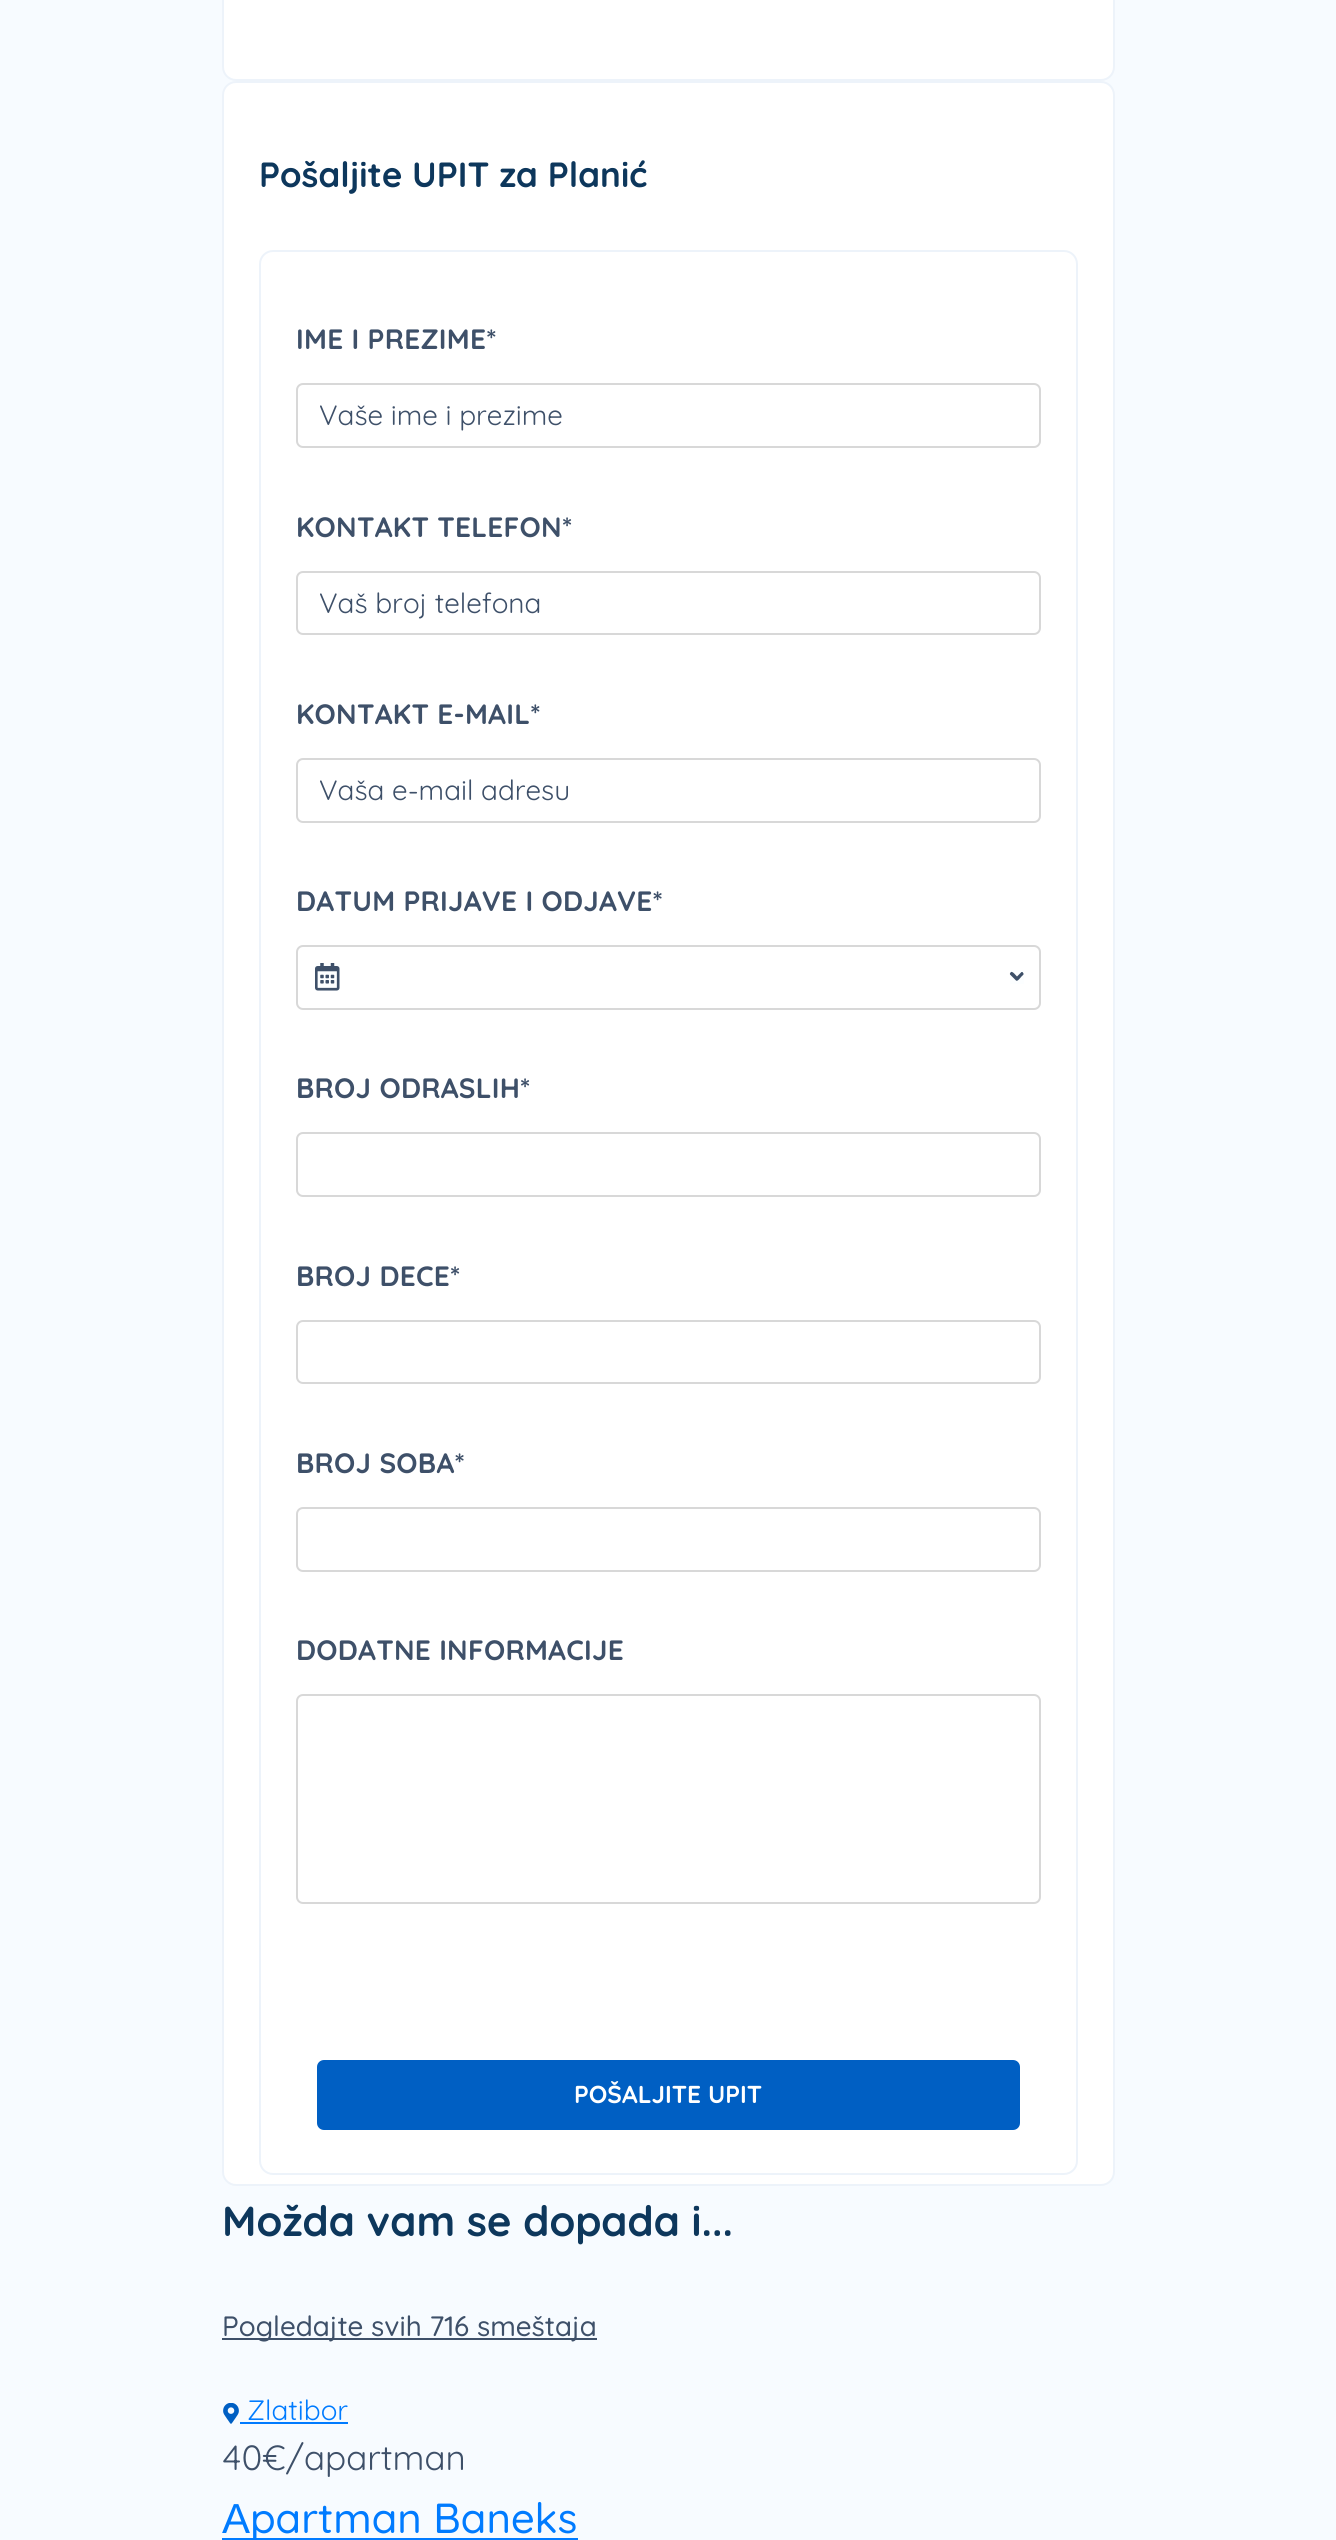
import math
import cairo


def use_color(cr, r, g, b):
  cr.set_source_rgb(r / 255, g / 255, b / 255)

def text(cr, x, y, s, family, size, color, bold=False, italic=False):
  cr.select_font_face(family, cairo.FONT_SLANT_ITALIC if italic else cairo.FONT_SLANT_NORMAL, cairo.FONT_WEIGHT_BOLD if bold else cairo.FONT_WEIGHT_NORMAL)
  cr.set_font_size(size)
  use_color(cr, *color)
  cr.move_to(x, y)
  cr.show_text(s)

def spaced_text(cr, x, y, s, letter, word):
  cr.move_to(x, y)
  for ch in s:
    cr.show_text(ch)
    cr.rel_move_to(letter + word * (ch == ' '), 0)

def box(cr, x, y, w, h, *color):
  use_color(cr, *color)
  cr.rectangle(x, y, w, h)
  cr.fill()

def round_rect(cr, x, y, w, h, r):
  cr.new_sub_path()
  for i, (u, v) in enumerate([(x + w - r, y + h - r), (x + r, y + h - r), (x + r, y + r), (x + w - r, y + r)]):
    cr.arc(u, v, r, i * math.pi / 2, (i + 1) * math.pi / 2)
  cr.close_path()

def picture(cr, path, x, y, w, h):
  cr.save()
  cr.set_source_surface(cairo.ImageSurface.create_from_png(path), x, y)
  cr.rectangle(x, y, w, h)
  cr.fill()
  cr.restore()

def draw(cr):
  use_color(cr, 247, 251, 255)
  cr.paint()
  use_color(cr, 255, 255, 255)
  round_rect(cr, 223, -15, 891, 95, 13)
  cr.fill_preserve()
  use_color(cr, 237, 243, 250)
  cr.stroke()
  use_color(cr, 255, 255, 255)
  round_rect(cr, 223, 82, 891, 2103, 13)
  cr.fill_preserve()
  use_color(cr, 237, 243, 250)
  cr.stroke()
  round_rect(cr, 260, 251, 817, 1923, 13)
  cr.stroke()
  round_rect(cr, 297, 384, 743, 63, 6)
  use_color(cr, 216, 216, 216)
  cr.stroke()
  round_rect(cr, 297, 572, 743, 62, 6)
  cr.stroke()
  round_rect(cr, 297, 759, 743, 63, 6)
  cr.stroke()
  round_rect(cr, 297, 946, 743, 63, 6)
  cr.stroke()
  picture(cr, "img_01.png", 315, 963, 25, 28)
  box(cr, 1010, 970, 14, 14, 252, 254, 255)
  use_color(cr, 62, 80, 105)
  cr.set_fill_rule(cairo.FILL_RULE_EVEN_ODD)
  cr.new_path()
  cr.move_to(1016, 980.5)
  cr.line_to(1010, 974.5)
  cr.curve_to(1009.5, 973.5, 1010.5, 972.5, 1011, 972)
  cr.curve_to(1012.5, 971, 1016, 975.5, 1017, 976.5)
  cr.line_to(1021.5, 972)
  cr.line_to(1022.5, 972)
  cr.curve_to(1024.5, 974.5, 1023.5, 974.5, 1021.5, 976.5)
  cr.curve_to(1020.5, 977.5, 1017.5, 982, 1016, 980.5)
  cr.close_path()
  cr.fill()
  round_rect(cr, 297, 1133, 743, 63, 6)
  use_color(cr, 216, 216, 216)
  cr.stroke()
  round_rect(cr, 297, 1321, 743, 62, 6)
  cr.stroke()
  round_rect(cr, 297, 1508, 743, 63, 6)
  cr.stroke()
  round_rect(cr, 297, 1695, 743, 208, 6)
  cr.stroke()
  use_color(cr, 0, 95, 195)
  round_rect(cr, 317, 2060, 703, 70, 7)
  cr.fill()
  box(cr, 222, 2338, 375, 2, 62, 80, 105)
  picture(cr, "img_02.png", 223, 2403, 16, 21)
  box(cr, 240, 2422, 108, 2, 0, 123, 255)
  box(cr, 222, 2538, 356, 2, 0, 123, 255)
  text(cr, 259, 187, "Pošaljite UPIT za Planić", "Quicksand", 35, (13, 55, 92), bold=True)
  cr.set_font_size(28)
  use_color(cr, 62, 80, 105)
  spaced_text(cr, 296, 349, "IME I PREZIME*", 0.25, 0)
  text(cr, 319, 425, "Vaše ime i prezime", "Quicksand", 28, (62, 80, 105))
  cr.select_font_face("Quicksand", cairo.FONT_SLANT_NORMAL, cairo.FONT_WEIGHT_BOLD)
  spaced_text(cr, 296, 537, "KONTAKT TELEFON*", 0.25, 0)
  text(cr, 319, 613, "Vaš broj telefona", "Quicksand", 28, (62, 80, 105))
  cr.select_font_face("Quicksand", cairo.FONT_SLANT_NORMAL, cairo.FONT_WEIGHT_BOLD)
  spaced_text(cr, 296, 724, "KONTAKT E-MAIL*", 0.25, 0)
  text(cr, 319, 800, "Vaša e-mail adresu", "Quicksand", 28, (62, 80, 105))
  cr.select_font_face("Quicksand", cairo.FONT_SLANT_NORMAL, cairo.FONT_WEIGHT_BOLD)
  spaced_text(cr, 296, 911, "DATUM PRIJAVE I ODJAVE*", 0.25, 0)
  spaced_text(cr, 296, 1098, "BROJ ODRASLIH*", 0.25, 0)
  spaced_text(cr, 296, 1286, "BROJ DECE*", 0.25, 0)
  spaced_text(cr, 296, 1473, "BROJ SOBA*", 0.25, 0)
  spaced_text(cr, 296, 1660, "DODATNE INFORMACIJE", 0.25, 0)
  text(cr, 574, 2103, "POŠALJITE UPIT", "Quicksand", 24.5, (255, 255, 255), bold=True)
  text(cr, 222, 2236, "Možda vam se dopada i...", "Quicksand", 42, (13, 55, 92), bold=True)
  text(cr, 222, 2336, "Pogledajte svih 716 smeštaja", "Quicksand Medium", 28, (62, 80, 105))
  text(cr, 247, 2420, "Zlatibor", "Quicksand", 28, (0, 123, 255))
  text(cr, 222, 2470, "40€/apartman", "Quicksand", 35, (62, 80, 105))
  text(cr, 222, 2533, "A", "Liberation Sans", 42, (0, 123, 255))
  text(cr, 250, 2533, "partman Baneks", "Quicksand Medium", 42, (0, 123, 255))


surface = cairo.ImageSurface(cairo.FORMAT_RGB24, 1336, 2540)
cr = cairo.Context(surface)
options = cairo.FontOptions()
options.set_hint_metrics(cairo.HINT_METRICS_OFF)
options.set_hint_style(cairo.HINT_STYLE_NONE)
cr.set_font_options(options)
cr.set_miter_limit(4)
draw(cr)
surface.write_to_png("out.png")
